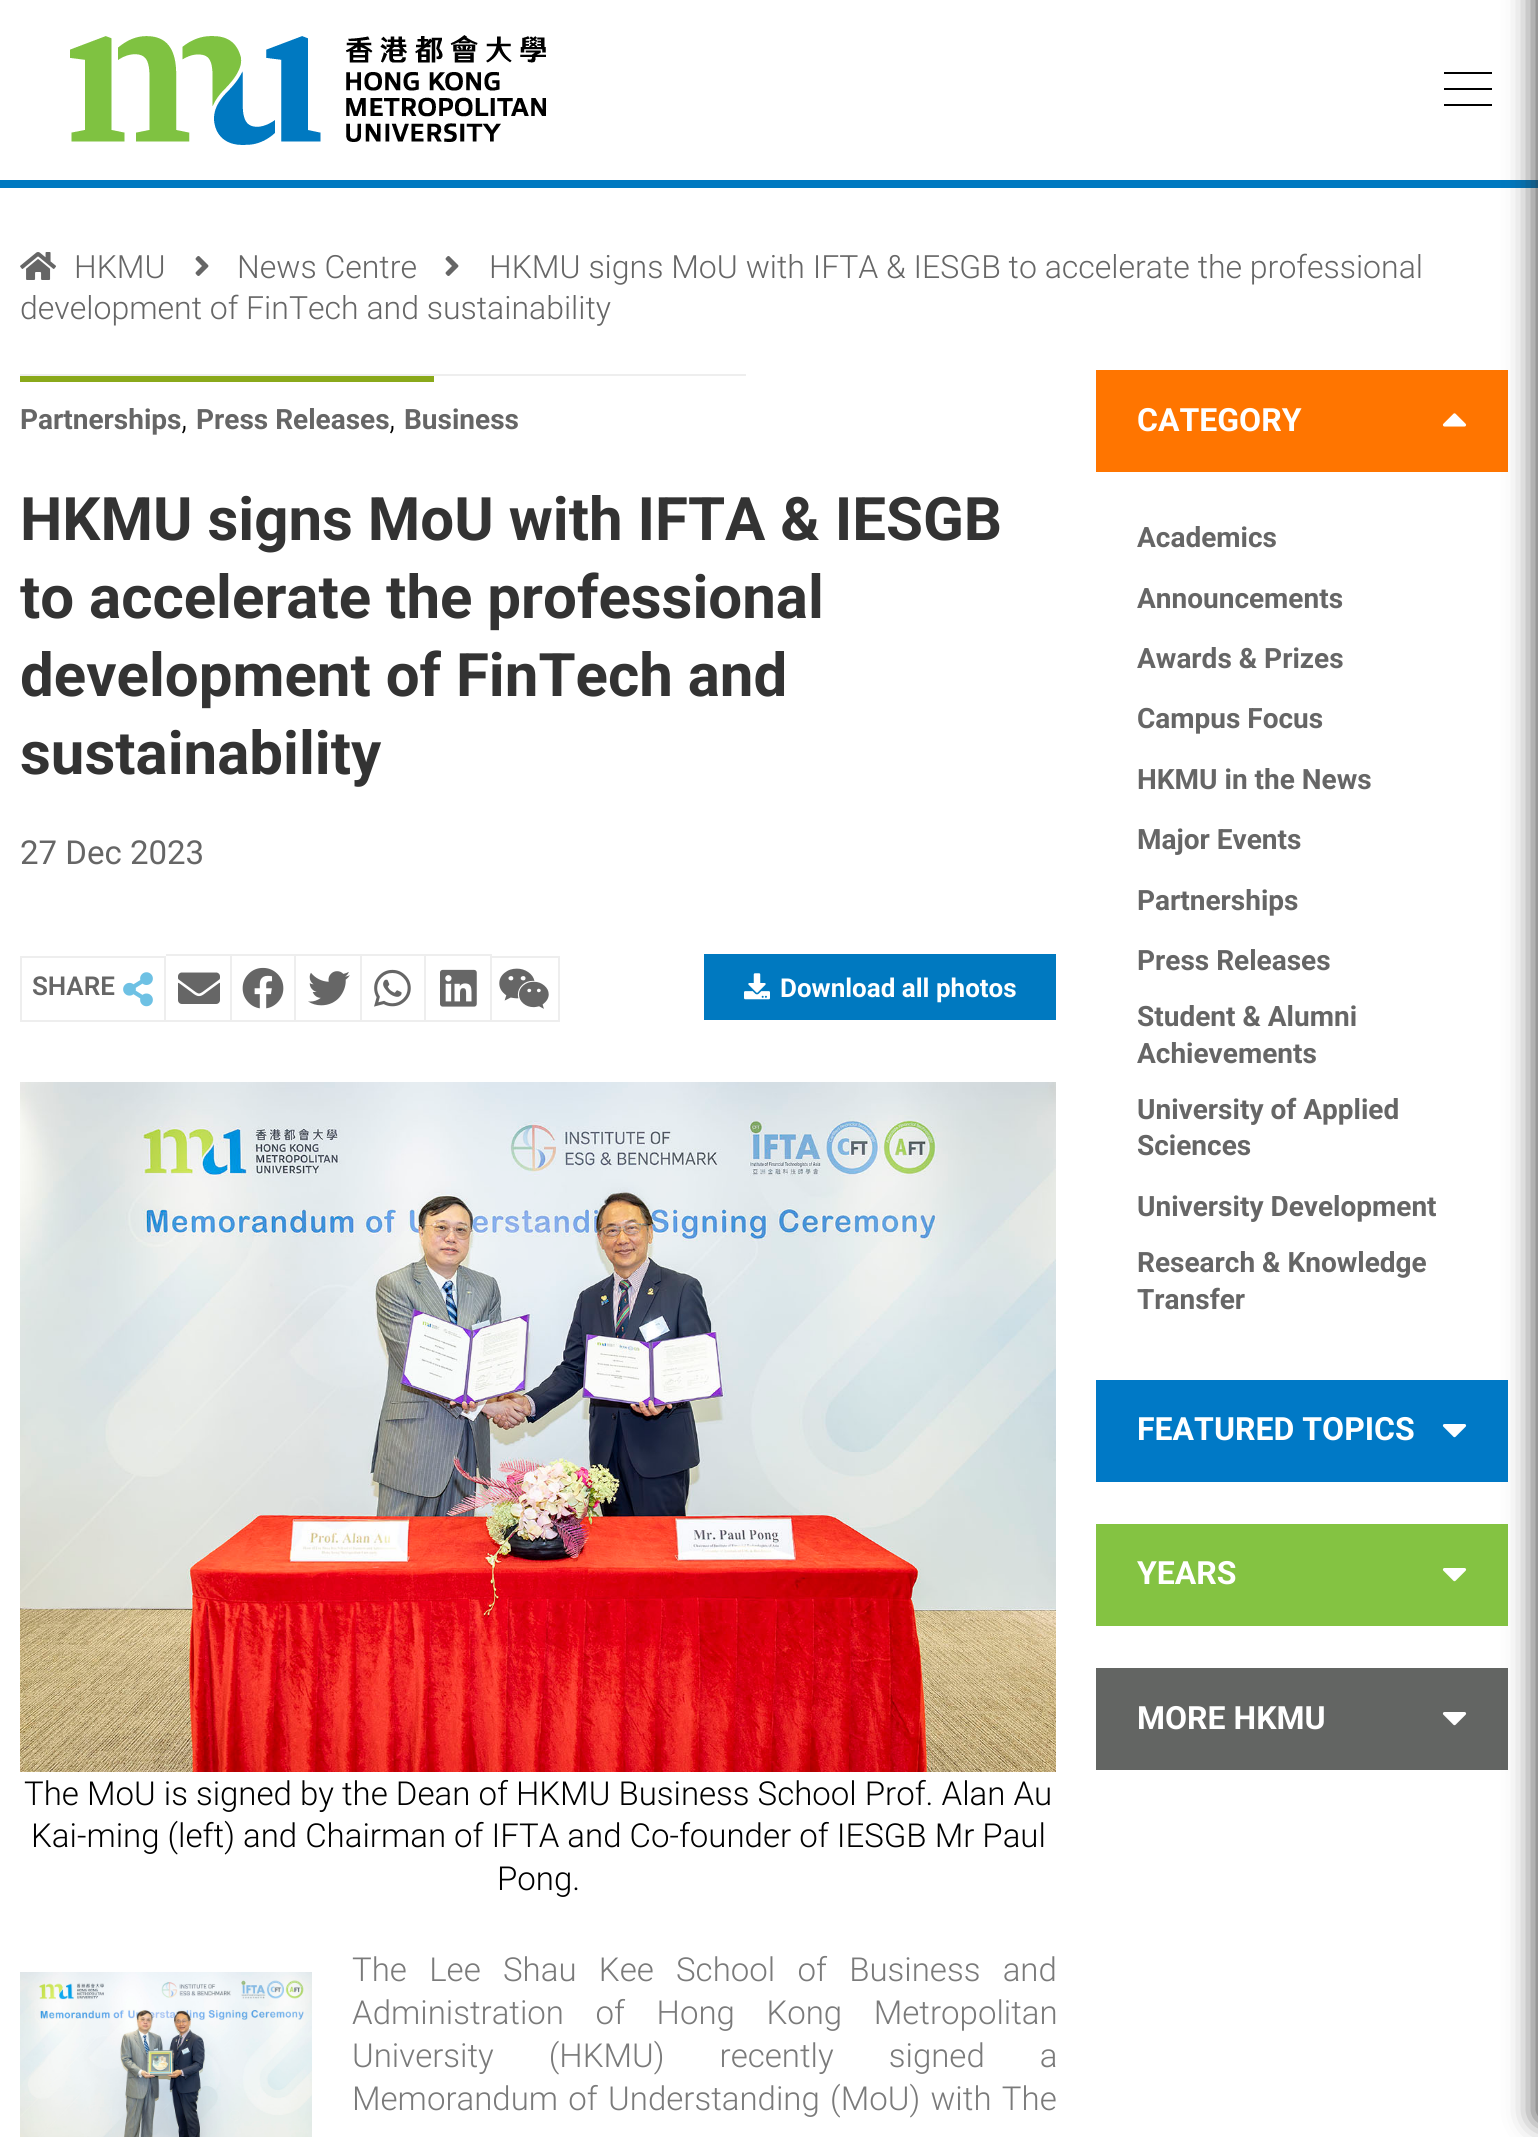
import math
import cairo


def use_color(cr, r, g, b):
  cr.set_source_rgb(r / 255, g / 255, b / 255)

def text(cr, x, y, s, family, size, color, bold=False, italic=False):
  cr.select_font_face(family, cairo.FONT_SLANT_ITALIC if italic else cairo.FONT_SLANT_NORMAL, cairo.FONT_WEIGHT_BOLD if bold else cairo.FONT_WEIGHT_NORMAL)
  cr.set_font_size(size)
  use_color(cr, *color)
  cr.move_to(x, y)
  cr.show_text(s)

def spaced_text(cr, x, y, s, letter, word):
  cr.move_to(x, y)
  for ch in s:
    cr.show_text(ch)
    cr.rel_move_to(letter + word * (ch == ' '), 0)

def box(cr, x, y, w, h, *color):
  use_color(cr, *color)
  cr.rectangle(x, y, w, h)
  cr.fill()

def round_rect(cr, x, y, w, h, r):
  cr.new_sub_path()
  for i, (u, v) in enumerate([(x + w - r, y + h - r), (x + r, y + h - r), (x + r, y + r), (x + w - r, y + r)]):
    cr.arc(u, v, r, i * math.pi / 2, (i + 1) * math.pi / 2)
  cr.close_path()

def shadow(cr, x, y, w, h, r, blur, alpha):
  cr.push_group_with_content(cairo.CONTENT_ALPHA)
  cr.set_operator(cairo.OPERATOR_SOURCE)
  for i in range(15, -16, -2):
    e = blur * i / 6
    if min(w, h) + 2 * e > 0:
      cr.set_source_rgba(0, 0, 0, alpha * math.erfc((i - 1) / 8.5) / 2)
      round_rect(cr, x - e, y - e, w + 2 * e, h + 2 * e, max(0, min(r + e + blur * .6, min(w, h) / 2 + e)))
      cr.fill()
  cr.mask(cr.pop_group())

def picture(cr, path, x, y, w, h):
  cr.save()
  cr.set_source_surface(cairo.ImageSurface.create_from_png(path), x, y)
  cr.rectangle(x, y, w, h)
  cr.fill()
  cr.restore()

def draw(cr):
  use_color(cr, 255, 255, 255)
  cr.paint()
  picture(cr, "img_01.png", 70, 35, 476, 110)
  box(cr, 1444, 88, 48, 2, 0, 0, 0)
  box(cr, 1444, 72, 48, 2, 0, 0, 0)
  box(cr, 1444, 104, 48, 2, 0, 0, 0)
  box(cr, 0, 180, 1538, 8, 0, 121, 192)
  box(cr, 1096, 370, 412, 102, 255, 117, 0)
  box(cr, 1096, 1380, 412, 102, 0, 121, 198)
  box(cr, 1096, 1524, 412, 102, 132, 195, 66)
  box(cr, 1096, 1668, 412, 102, 99, 101, 99)
  use_color(cr, 45, 45, 45)
  shadow(cr, 1538, -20, 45, 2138, 0, 15, 1)
  picture(cr, "img_02.png", 20, 252, 36, 28)
  picture(cr, "img_03.png", 195, 256, 14, 20)
  picture(cr, "img_03.png", 445, 256, 14, 20)
  box(cr, 20, 374, 726, 2, 238, 238, 238)
  box(cr, 20, 376, 414, 6, 138, 169, 27)
  cr.rectangle(21, 957, 144, 64)
  use_color(cr, 238, 238, 238)
  cr.stroke()
  picture(cr, "img_04.png", 123, 972, 30, 35)
  box(cr, 166, 954, 326, 2, 238, 238, 238)
  box(cr, 230, 954, 2, 68, 238, 238, 238)
  box(cr, 166, 1020, 66, 2, 238, 238, 238)
  picture(cr, "img_05.png", 178, 972, 42, 32)
  box(cr, 294, 954, 2, 68, 238, 238, 238)
  box(cr, 232, 1020, 64, 2, 238, 238, 238)
  picture(cr, "img_06.png", 242, 967, 42, 42)
  box(cr, 360, 954, 2, 68, 238, 238, 238)
  box(cr, 296, 1020, 66, 2, 238, 238, 238)
  picture(cr, "img_07.png", 308, 971, 42, 35)
  box(cr, 424, 954, 2, 68, 238, 238, 238)
  box(cr, 362, 1020, 64, 2, 238, 238, 238)
  picture(cr, "img_08.png", 374, 969, 37, 38)
  box(cr, 490, 954, 2, 68, 238, 238, 238)
  box(cr, 426, 1020, 66, 2, 238, 238, 238)
  picture(cr, "img_09.png", 440, 969, 37, 38)
  box(cr, 492, 956, 68, 2, 238, 238, 238)
  box(cr, 558, 956, 2, 66, 238, 238, 238)
  box(cr, 492, 1020, 68, 2, 238, 238, 238)
  picture(cr, "img_10.png", 499, 968, 50, 41)
  box(cr, 704, 954, 352, 66, 0, 121, 192)
  picture(cr, "img_11.png", 744, 973, 26, 27)
  picture(cr, "img_12.png", 20, 1082, 1036, 690)
  picture(cr, "img_13.png", 20, 1972, 292, 165)
  picture(cr, "img_14.png", 1442, 413, 25, 14)
  picture(cr, "img_15.png", 1442, 1424, 25, 14)
  picture(cr, "img_16.png", 1442, 1568, 25, 14)
  picture(cr, "img_17.png", 1442, 1712, 25, 14)
  text(cr, 74, 278, "HKMU", "Roboto Light", 32, (102, 102, 102))
  text(cr, 237, 278, "News Centre", "Roboto Light", 32, (102, 102, 102))
  text(cr, 489, 278, "HKMU signs MoU with IFTA & IESGB to accelerate the professional", "Roboto Light", 32, (102, 102, 102))
  text(cr, 20, 319, "development of FinTech and sustainability", "Roboto Light", 32, (102, 102, 102))
  text(cr, 20, 429, "Partnerships", "Roboto", 28, (102, 102, 102), bold=True)
  text(cr, 181, 429, ",", "Roboto Light", 33, (0, 0, 0))
  text(cr, 196, 429, "Press Releases", "Roboto", 28, (102, 102, 102), bold=True)
  text(cr, 389, 429, ",", "Roboto Light", 33, (0, 0, 0))
  text(cr, 404, 429, "Business", "Roboto", 28, (102, 102, 102), bold=True)
  text(cr, 20, 540, "HKMU signs MoU with IFTA & IESGB", "Roboto", 60, (51, 51, 51), bold=True)
  text(cr, 20, 618, "to accelerate the professional", "Roboto", 60, (51, 51, 51), bold=True)
  text(cr, 20, 696, "development of FinTech and", "Roboto", 60, (51, 51, 51), bold=True)
  text(cr, 20, 774, "sustainability", "Roboto", 60, (51, 51, 51), bold=True)
  text(cr, 20, 864, "27 Dec 2023", "Roboto", 33, (102, 102, 102))
  text(cr, 32, 995, "SHARE", "Roboto SemiBold", 26, (102, 102, 102))
  text(cr, 780, 997, "Download all photos", "Roboto", 26, (255, 255, 255), bold=True)
  text(cr, 24, 1805, "The MoU is signed by the Dean of HKMU Business School Prof. Alan Au", "Roboto Light", 33, (0, 0, 0))
  text(cr, 31, 1847, "Kai-ming (left) and Chairman of IFTA and Co-founder of IESGB Mr Paul", "Roboto Light", 33, (0, 0, 0))
  text(cr, 497, 1890, "Pong.", "Roboto Light", 33, (0, 0, 0))
  use_color(cr, 122, 122, 122)
  spaced_text(cr, 352, 1981, "The Lee Shau Kee School of Business and", 0, 14.25)
  spaced_text(cr, 352, 2024, "Administration of Hong Kong Metropolitan", 0, 23.5)
  spaced_text(cr, 352, 2067, "University (HKMU) recently signed a", 0, 47)
  spaced_text(cr, 352, 2110, "Memorandum of Understanding (MoU) with The", 0, 2.25)
  text(cr, 1137, 431, "CATEGORY", "Roboto", 32, (255, 255, 255), bold=True)
  text(cr, 1137, 547, "Academics", "Roboto", 28, (102, 102, 102), bold=True)
  text(cr, 1137, 608, "Announcements", "Roboto", 28, (102, 102, 102), bold=True)
  text(cr, 1137, 668, "Awards & Prizes", "Roboto", 28, (102, 102, 102), bold=True)
  text(cr, 1137, 728, "Campus Focus", "Roboto", 28, (102, 102, 102), bold=True)
  text(cr, 1137, 789, "HKMU in the News", "Roboto", 28, (102, 102, 102), bold=True)
  text(cr, 1137, 849, "Major Events", "Roboto", 28, (102, 102, 102), bold=True)
  text(cr, 1137, 910, "Partnerships", "Roboto", 28, (102, 102, 102), bold=True)
  text(cr, 1137, 970, "Press Releases", "Roboto", 28, (102, 102, 102), bold=True)
  text(cr, 1137, 1026, "Student & Alumni", "Roboto", 28, (102, 102, 102), bold=True)
  text(cr, 1137, 1063, "Achievements", "Roboto", 28, (102, 102, 102), bold=True)
  text(cr, 1137, 1119, "University of Applied", "Roboto", 28, (102, 102, 102), bold=True)
  text(cr, 1137, 1155, "Sciences", "Roboto", 28, (102, 102, 102), bold=True)
  text(cr, 1137, 1216, "University Development", "Roboto", 28, (102, 102, 102), bold=True)
  text(cr, 1137, 1272, "Research & Knowledge", "Roboto", 28, (102, 102, 102), bold=True)
  text(cr, 1137, 1309, "Transfer", "Roboto", 28, (102, 102, 102), bold=True)
  text(cr, 1137, 1440, "FEATURED TOPICS", "Roboto", 32, (255, 255, 255), bold=True)
  text(cr, 1137, 1584, "YEARS", "Roboto", 32, (255, 255, 255), bold=True)
  text(cr, 1137, 1729, "MORE HKMU", "Roboto", 32, (255, 255, 255), bold=True)


surface = cairo.ImageSurface(cairo.FORMAT_RGB24, 1538, 2137)
cr = cairo.Context(surface)
options = cairo.FontOptions()
options.set_hint_metrics(cairo.HINT_METRICS_OFF)
options.set_hint_style(cairo.HINT_STYLE_NONE)
cr.set_font_options(options)
cr.set_miter_limit(4)
draw(cr)
surface.write_to_png("out.png")
